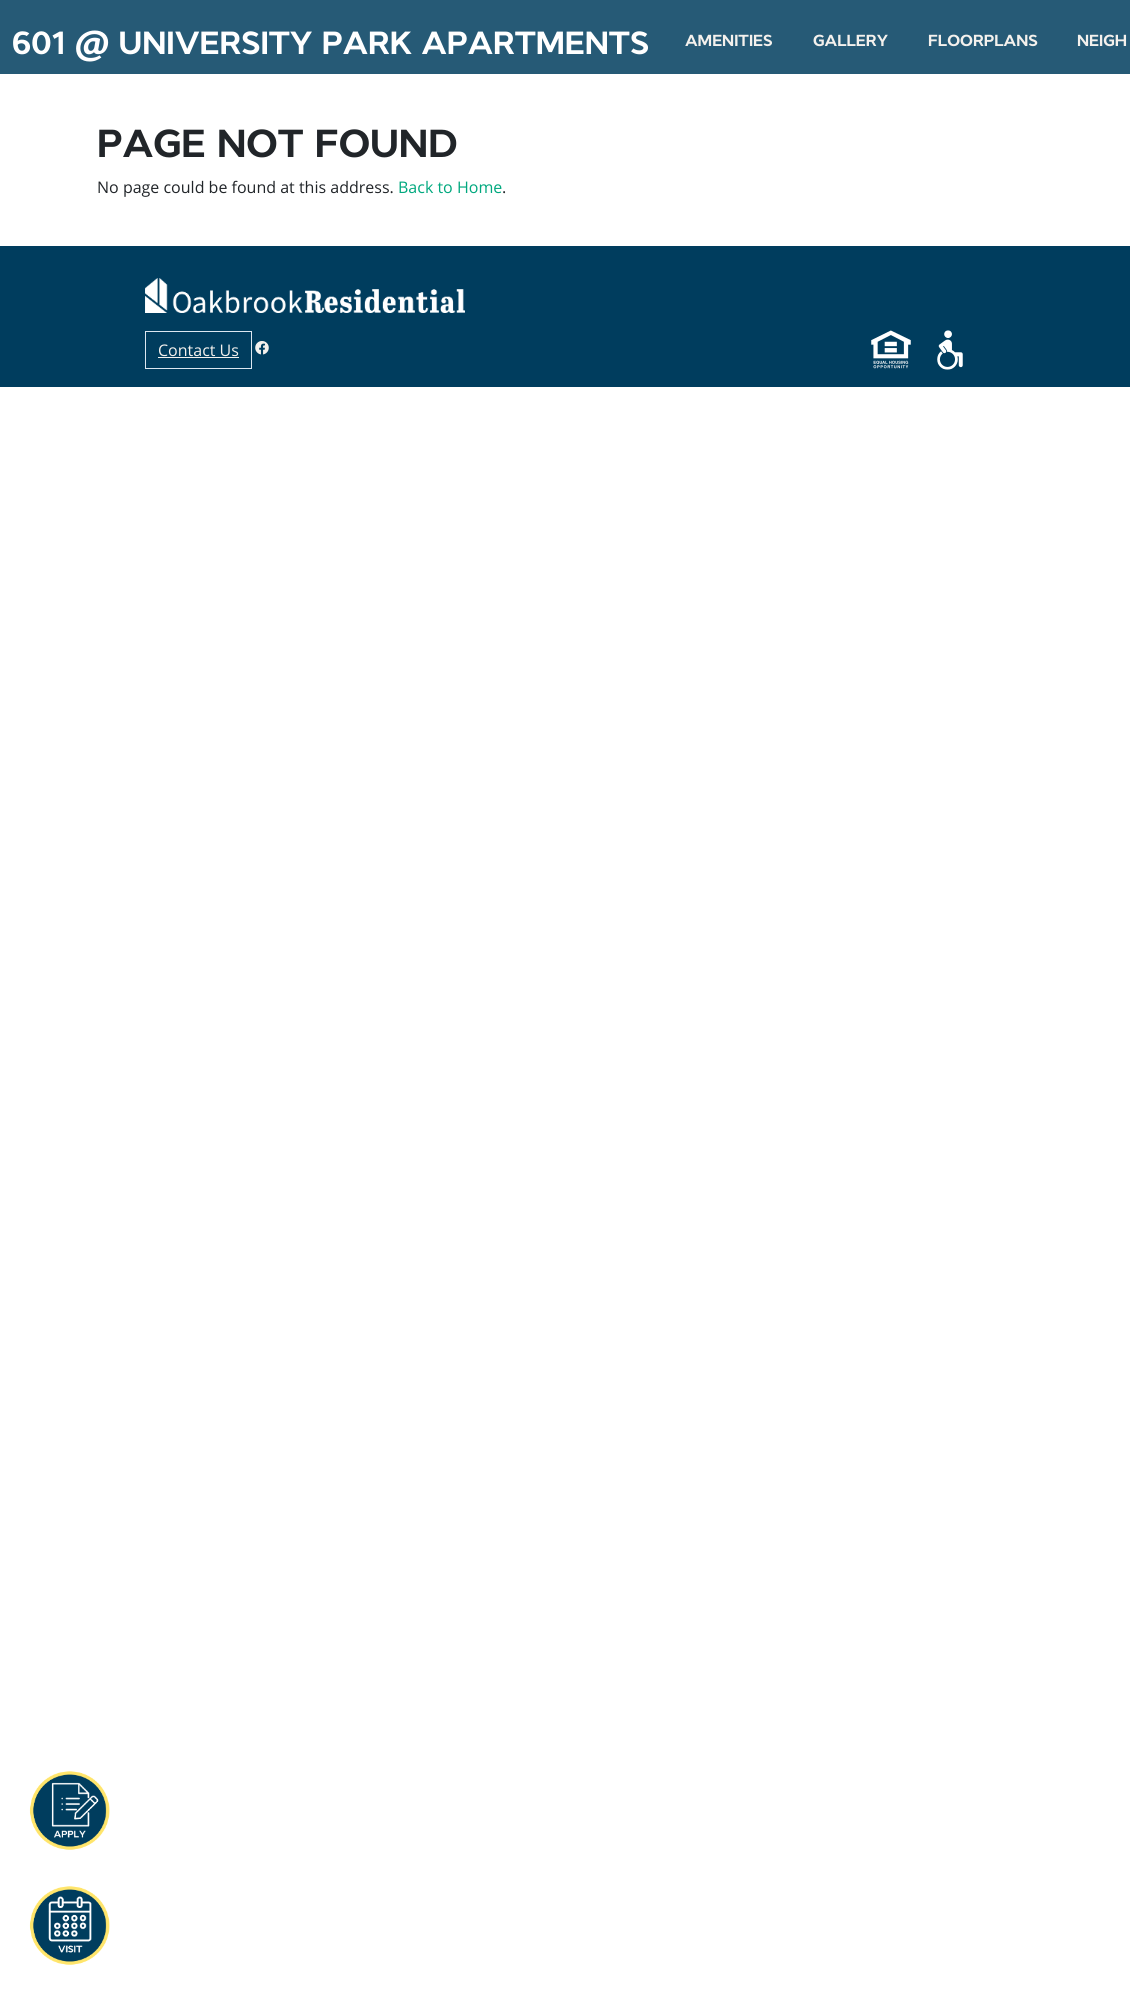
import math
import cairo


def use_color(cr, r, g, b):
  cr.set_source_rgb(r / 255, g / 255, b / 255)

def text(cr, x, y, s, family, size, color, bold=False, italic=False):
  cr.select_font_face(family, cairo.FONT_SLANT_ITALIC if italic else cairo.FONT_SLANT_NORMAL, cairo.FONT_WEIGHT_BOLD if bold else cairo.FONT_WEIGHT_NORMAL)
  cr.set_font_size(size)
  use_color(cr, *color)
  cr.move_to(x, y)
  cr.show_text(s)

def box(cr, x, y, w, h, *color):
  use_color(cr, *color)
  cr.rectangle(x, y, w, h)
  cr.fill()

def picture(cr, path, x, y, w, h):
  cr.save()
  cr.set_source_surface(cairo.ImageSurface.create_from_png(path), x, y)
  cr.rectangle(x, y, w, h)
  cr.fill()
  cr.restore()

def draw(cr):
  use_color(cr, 255, 255, 255)
  cr.paint()
  box(cr, 0, 0, 1130, 74, 38, 90, 118)
  box(cr, 0, 246, 1130, 141, 0, 61, 94)
  picture(cr, "img_01.png", 145, 278, 320, 35)
  cr.rectangle(145.5, 331.5, 106, 37)
  use_color(cr, 220, 231, 240)
  cr.set_line_width(1)
  cr.stroke()
  box(cr, 158, 357, 81, 1, 244, 241, 237)
  picture(cr, "img_02.png", 255, 341, 14, 14)
  picture(cr, "img_03.png", 871, 330, 40, 39)
  picture(cr, "img_04.png", 937, 330, 26, 40)
  picture(cr, "img_05.png", 29, 1771, 81, 79)
  picture(cr, "img_06.png", 29, 1886, 81, 79)
  text(cr, 12, 54, "601 @ UNIVERSITY PARK APARTMENTS", "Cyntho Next", 32, (255, 255, 255), bold=True)
  text(cr, 685, 46, "AMENITIES", "Cyntho Next", 16, (244, 241, 237), bold=True)
  text(cr, 813, 46, "GALLERY", "Cyntho Next", 16, (244, 241, 237), bold=True)
  text(cr, 928, 46, "FLOORPLANS", "Cyntho Next", 16, (244, 241, 237), bold=True)
  text(cr, 1077, 46, "NEIGH", "Cyntho Next", 16, (244, 241, 237), bold=True)
  text(cr, 97, 157, "PAGE NOT FOUND", "Cyntho Next", 39, (33, 37, 41), bold=True)
  text(cr, 97, 193, "No page could be found at this address.", "Open Sans", 16, (33, 37, 41))
  text(cr, 398, 193, "Back to Home", "Open Sans", 16, (0, 168, 126))
  text(cr, 502, 193, ".", "Open Sans", 16, (33, 37, 41))
  text(cr, 158, 356, "Contact Us", "Open Sans", 16, (244, 241, 237))


surface = cairo.ImageSurface(cairo.FORMAT_RGB24, 1130, 2004)
cr = cairo.Context(surface)
options = cairo.FontOptions()
options.set_hint_metrics(cairo.HINT_METRICS_OFF)
options.set_hint_style(cairo.HINT_STYLE_NONE)
cr.set_font_options(options)
cr.set_miter_limit(4)
draw(cr)
surface.write_to_png("out.png")
